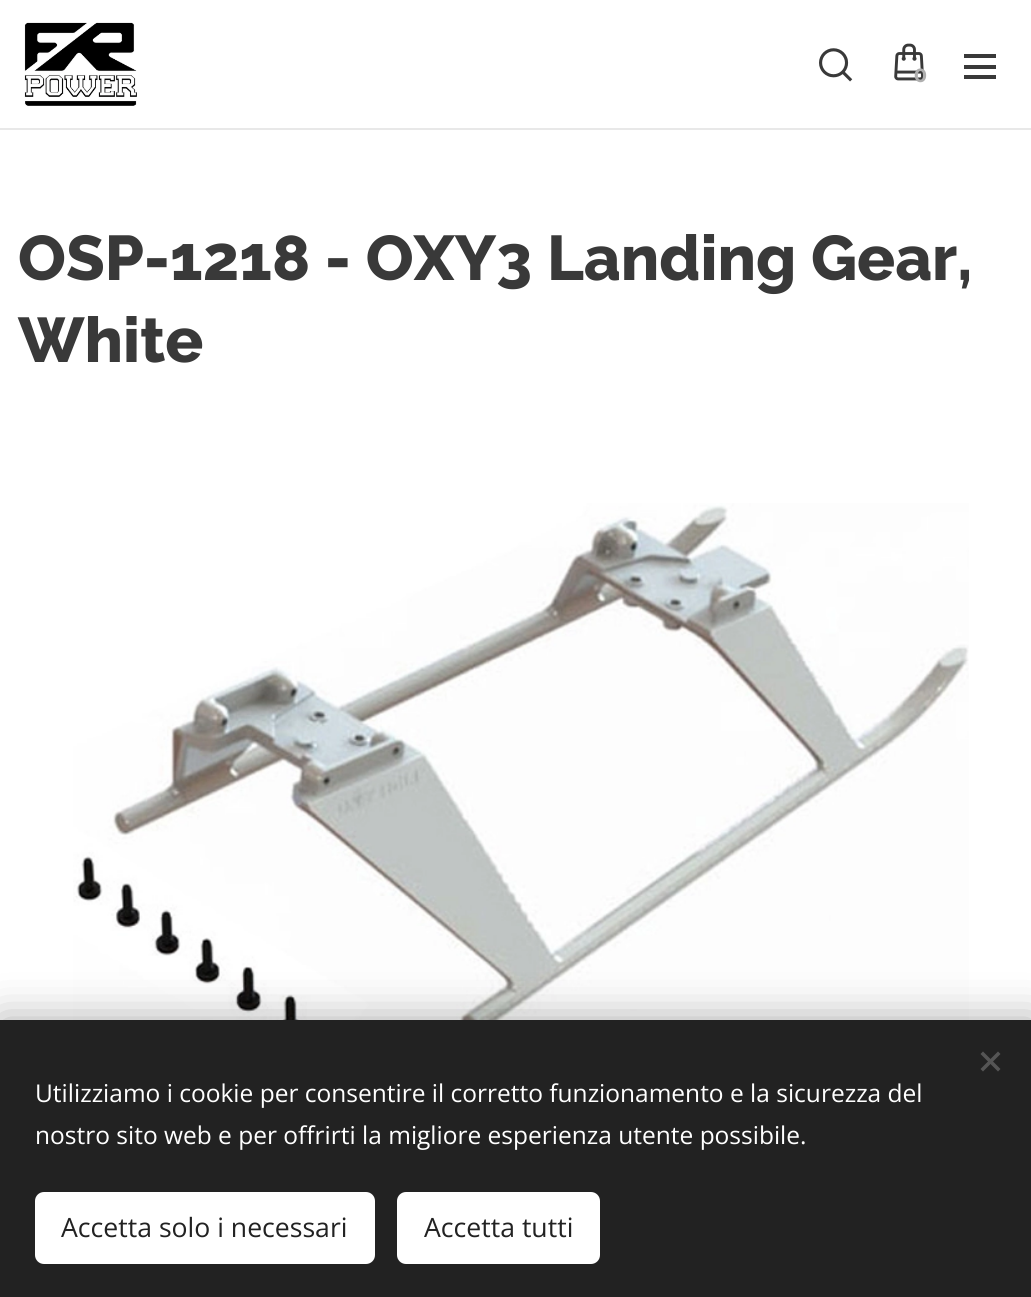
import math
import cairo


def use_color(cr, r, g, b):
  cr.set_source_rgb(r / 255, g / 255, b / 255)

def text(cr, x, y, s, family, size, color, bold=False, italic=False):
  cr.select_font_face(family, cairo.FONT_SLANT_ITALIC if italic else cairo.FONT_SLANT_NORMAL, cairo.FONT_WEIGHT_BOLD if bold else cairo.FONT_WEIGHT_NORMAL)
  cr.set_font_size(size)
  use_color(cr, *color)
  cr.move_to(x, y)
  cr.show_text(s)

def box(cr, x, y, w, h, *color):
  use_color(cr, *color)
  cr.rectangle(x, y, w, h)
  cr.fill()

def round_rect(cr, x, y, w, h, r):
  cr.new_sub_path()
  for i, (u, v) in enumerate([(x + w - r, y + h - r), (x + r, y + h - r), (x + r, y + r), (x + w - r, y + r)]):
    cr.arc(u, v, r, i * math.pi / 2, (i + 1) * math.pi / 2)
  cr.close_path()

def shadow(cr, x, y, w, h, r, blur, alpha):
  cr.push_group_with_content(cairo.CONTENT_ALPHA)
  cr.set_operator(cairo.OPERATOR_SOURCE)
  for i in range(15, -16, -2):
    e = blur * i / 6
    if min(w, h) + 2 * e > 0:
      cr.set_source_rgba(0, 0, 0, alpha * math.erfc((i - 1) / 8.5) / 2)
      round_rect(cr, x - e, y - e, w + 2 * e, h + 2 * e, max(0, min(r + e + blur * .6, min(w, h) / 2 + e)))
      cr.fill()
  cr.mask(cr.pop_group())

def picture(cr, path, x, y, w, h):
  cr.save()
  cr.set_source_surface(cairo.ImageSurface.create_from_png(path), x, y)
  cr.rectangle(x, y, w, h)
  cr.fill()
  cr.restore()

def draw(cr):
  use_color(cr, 255, 255, 255)
  cr.paint()
  picture(cr, "img_01.png", 24, 22, 113, 84)
  picture(cr, "img_02.png", 819, 48, 34, 34)
  picture(cr, "img_03.png", 894, 43, 30, 38)
  box(cr, 964, 65, 32, 4, 57, 57, 57)
  box(cr, 964, 54, 32, 4, 57, 57, 57)
  box(cr, 964, 75, 32, 4, 57, 57, 57)
  box(cr, 0, 128, 1031, 2, 232, 232, 232)
  picture(cr, "img_04.png", 73, 503, 896, 517)
  use_color(cr, 0, 0, 0)
  shadow(cr, 0, 1020, 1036, 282, 0, 22, 0.33)
  box(cr, 0, 1020, 1031, 277, 34, 34, 34)
  use_color(cr, 85, 85, 85)
  cr.new_path()
  cr.move_to(980.5, 1069)
  cr.line_to(998, 1051.5)
  cr.line_to(1000.5, 1054)
  cr.line_to(983, 1071.5)
  cr.close_path()
  cr.fill()
  cr.new_path()
  cr.move_to(983, 1051.5)
  cr.line_to(1000.5, 1069)
  cr.line_to(998, 1071.5)
  cr.line_to(980.5, 1054)
  cr.close_path()
  cr.fill()
  use_color(cr, 255, 255, 255)
  round_rect(cr, 35, 1192, 340, 72, 9)
  cr.fill()
  round_rect(cr, 397, 1192, 203, 72, 9)
  cr.fill()
  text(cr, 914, 82, "0", "Montserrat", 19, (175, 175, 175), bold=True)
  text(cr, 18, 280, "OSP-1218 - OXY3 Landing Gear,", "Raleway ExtraBold", 63, (57, 57, 57))
  text(cr, 18, 362, "White", "Raleway ExtraBold", 63, (57, 57, 57))
  text(cr, 35, 1102, "Utilizziamo i cookie per consentire il corretto funzionamento e la sicurezza del", "Open Sans", 24.5, (255, 255, 255))
  text(cr, 35, 1144, "nostro sito web e per offrirti la migliore esperienza utente possibile.", "Open Sans", 24.5, (255, 255, 255))
  text(cr, 61, 1237, "Accetta solo i necessari", "Open Sans", 26.6, (34, 34, 34))
  text(cr, 424, 1237, "Accetta tutti", "Open Sans", 26.6, (34, 34, 34))


surface = cairo.ImageSurface(cairo.FORMAT_RGB24, 1031, 1297)
cr = cairo.Context(surface)
options = cairo.FontOptions()
options.set_hint_metrics(cairo.HINT_METRICS_OFF)
options.set_hint_style(cairo.HINT_STYLE_NONE)
cr.set_font_options(options)
cr.set_miter_limit(4)
draw(cr)
surface.write_to_png("out.png")
